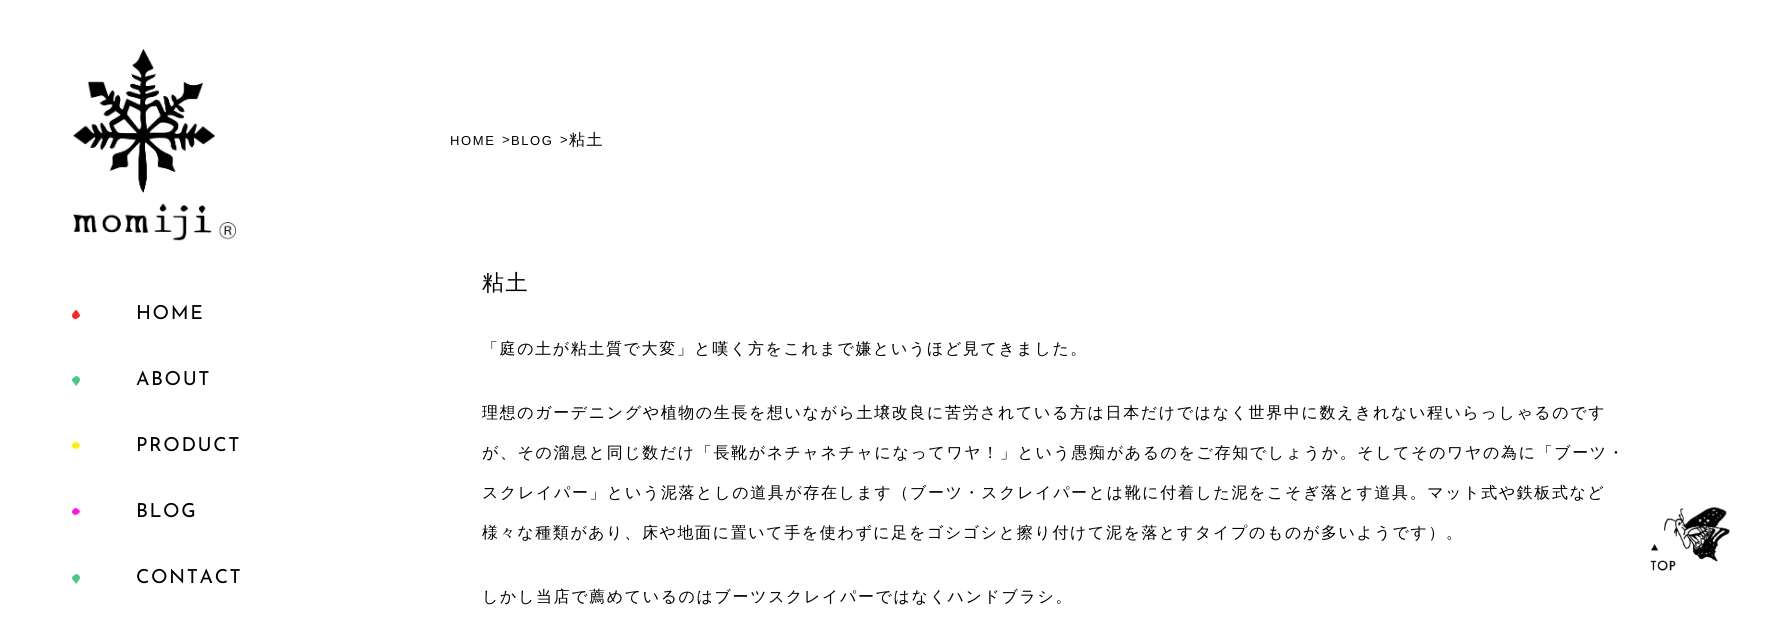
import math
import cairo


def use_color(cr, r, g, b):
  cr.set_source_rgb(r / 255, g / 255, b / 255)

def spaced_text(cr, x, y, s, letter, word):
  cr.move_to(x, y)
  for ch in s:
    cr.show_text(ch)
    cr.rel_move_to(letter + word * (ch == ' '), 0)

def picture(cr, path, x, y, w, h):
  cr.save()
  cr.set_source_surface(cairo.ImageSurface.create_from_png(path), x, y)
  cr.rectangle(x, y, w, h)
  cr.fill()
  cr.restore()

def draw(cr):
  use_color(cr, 255, 255, 255)
  cr.paint()
  picture(cr, "img_01.png", 73, 49, 143, 144)
  picture(cr, "img_02.png", 73, 203, 163, 38)
  picture(cr, "img_03.png", 72, 310, 9, 10)
  picture(cr, "img_04.png", 72, 376, 9, 11)
  picture(cr, "img_05.png", 72, 441, 9, 9)
  picture(cr, "img_06.png", 72, 507, 9, 9)
  picture(cr, "img_04.png", 72, 574, 9, 11)
  picture(cr, "img_07.png", 1650, 506, 80, 65)
  cr.select_font_face("Josefin Sans Thin")
  cr.set_font_size(19.25)
  use_color(cr, 0, 0, 0)
  spaced_text(cr, 136, 319, "HOME", 1.6, 0)
  spaced_text(cr, 136, 385, "ABOUT", 1.6, 0)
  spaced_text(cr, 136, 451, "PRODUCT", 1.6, 0)
  spaced_text(cr, 136, 517, "BLOG", 1.6, 0)
  spaced_text(cr, 136, 583, "CONTACT", 1.6, 0)
  cr.select_font_face("Liberation Sans")
  cr.set_font_size(13)
  spaced_text(cr, 450, 145, "HOME", 1.6, 0)
  spaced_text(cr, 502, 144, ">", 1.6, 0)
  spaced_text(cr, 511, 145, "BLOG", 1.6, 0)
  spaced_text(cr, 560, 144, ">", 1.6, 0)
  cr.select_font_face("WenQuanYi Zen Hei Medium")
  cr.set_font_size(16)
  spaced_text(cr, 569, 145, "粘土", 1.6, 0)
  cr.set_font_size(22)
  spaced_text(cr, 482, 290, "粘土", 1.6, 0)
  cr.set_font_size(16)
  spaced_text(cr, 482, 354, "「庭の土が粘土質で大変」と嘆く方をこれまで嫌というほど見てきました。", 1.6, 0)
  spaced_text(cr, 482, 418, "理想のガーデニングや植物の生長を想いながら土壌改良に苦労されている方は日本だけではなく世界中に数えきれない程いらっしゃるのです", 1.6, 0)
  spaced_text(cr, 482, 458, "が、その溜息と同じ数だけ「長靴がネチャネチャになってワヤ！」という愚痴があるのをご存知でしょうか。そしてそのワヤの為に「ブーツ・", 1.6, 0)
  spaced_text(cr, 482, 498, "スクレイパー」という泥落としの道具が存在します（ブーツ・スクレイパーとは靴に付着した泥をこそぎ落とす道具。マット式や鉄板式など", 1.6, 0)
  spaced_text(cr, 482, 538, "様々な種類があり、床や地面に置いて手を使わずに足をゴシゴシと擦り付けて泥を落とすタイプのものが多いようです）。", 1.6, 0)
  spaced_text(cr, 482, 602, "しかし当店で薦めているのはブーツスクレイパーではなくハンドブラシ。", 1.6, 0)


surface = cairo.ImageSurface(cairo.FORMAT_RGB24, 1780, 624)
cr = cairo.Context(surface)
options = cairo.FontOptions()
options.set_hint_metrics(cairo.HINT_METRICS_OFF)
options.set_hint_style(cairo.HINT_STYLE_NONE)
cr.set_font_options(options)
cr.set_miter_limit(4)
draw(cr)
surface.write_to_png("out.png")
